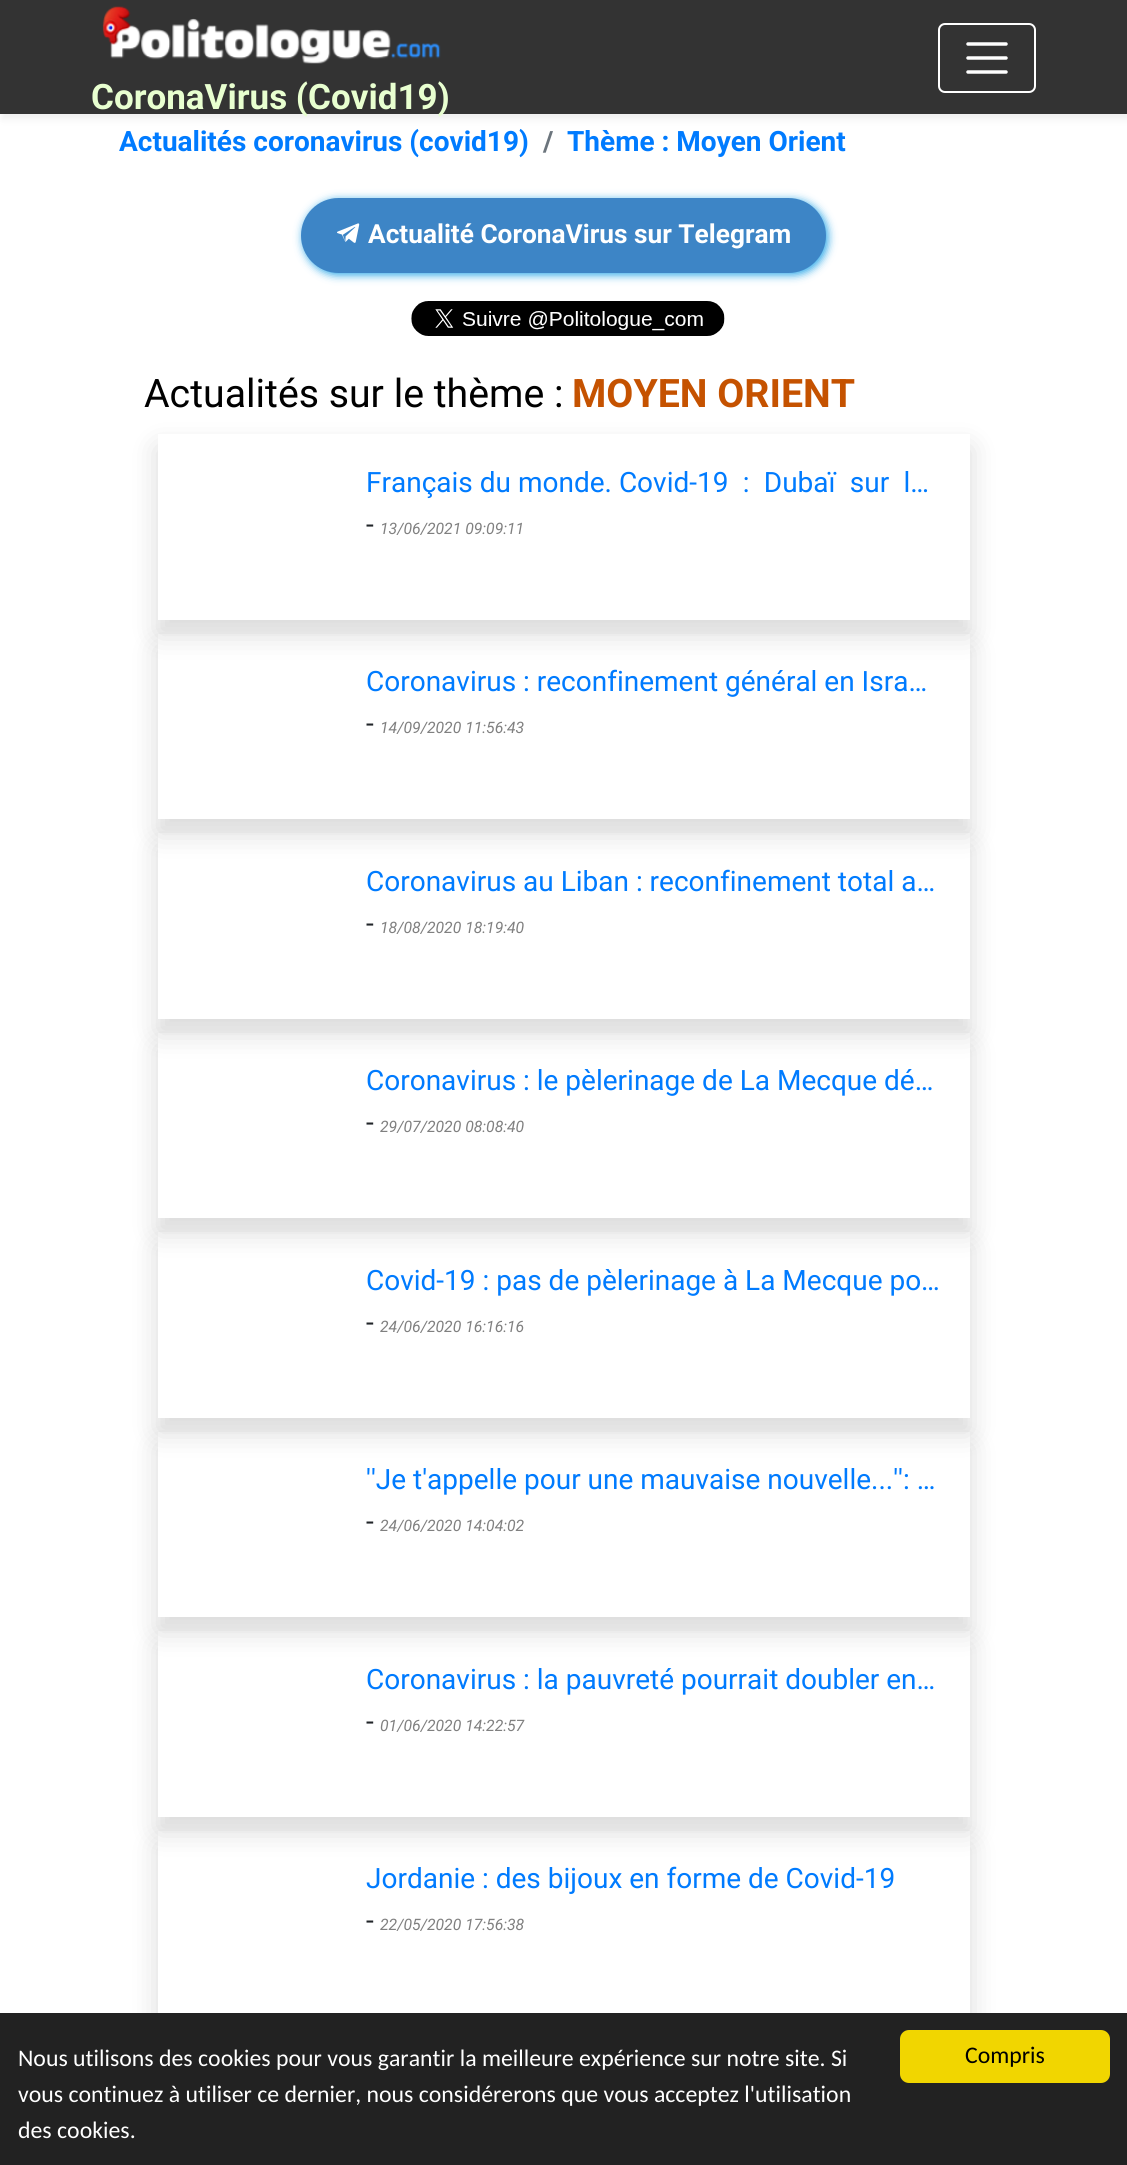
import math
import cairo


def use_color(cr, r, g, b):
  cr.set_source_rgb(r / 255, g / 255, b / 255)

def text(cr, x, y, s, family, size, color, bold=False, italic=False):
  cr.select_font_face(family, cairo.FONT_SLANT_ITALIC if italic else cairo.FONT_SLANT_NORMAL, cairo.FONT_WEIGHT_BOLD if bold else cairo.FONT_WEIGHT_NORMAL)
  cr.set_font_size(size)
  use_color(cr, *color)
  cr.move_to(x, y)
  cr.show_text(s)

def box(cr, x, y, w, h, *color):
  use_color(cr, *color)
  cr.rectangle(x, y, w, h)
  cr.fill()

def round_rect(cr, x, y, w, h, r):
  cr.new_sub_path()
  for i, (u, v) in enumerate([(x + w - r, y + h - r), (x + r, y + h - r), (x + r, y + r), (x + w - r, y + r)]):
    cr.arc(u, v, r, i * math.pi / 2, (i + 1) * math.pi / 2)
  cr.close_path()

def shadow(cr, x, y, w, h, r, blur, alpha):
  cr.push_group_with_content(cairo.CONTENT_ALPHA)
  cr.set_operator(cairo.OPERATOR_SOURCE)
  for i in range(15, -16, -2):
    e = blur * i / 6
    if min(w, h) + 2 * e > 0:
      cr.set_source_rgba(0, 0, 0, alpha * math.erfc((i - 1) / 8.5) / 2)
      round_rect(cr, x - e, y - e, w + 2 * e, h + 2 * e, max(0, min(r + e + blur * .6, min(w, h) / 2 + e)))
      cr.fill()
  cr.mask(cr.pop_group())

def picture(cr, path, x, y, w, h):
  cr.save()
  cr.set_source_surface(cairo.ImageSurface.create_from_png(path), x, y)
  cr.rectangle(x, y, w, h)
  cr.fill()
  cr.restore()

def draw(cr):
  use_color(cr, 255, 255, 255)
  cr.paint()
  use_color(cr, 173, 173, 173)
  shadow(cr, 2, 5, 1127, 114, 0, 3.5, 0.2)
  box(cr, 0, 0, 1127, 114, 51, 51, 51)
  round_rect(cr, 939, 24, 96, 68, 6)
  use_color(cr, 255, 255, 255)
  cr.stroke()
  cr.new_path()
  cr.move_to(968, 44)
  cr.line_to(1006, 44)
  cr.move_to(968, 58)
  cr.line_to(1006, 58)
  cr.move_to(968, 72)
  cr.line_to(1006, 72)
  cr.set_line_width(3.5)
  cr.set_line_cap(cairo.LINE_CAP_ROUND)
  cr.stroke()
  picture(cr, "img_01.png", 102, 6, 339, 58)
  use_color(cr, 39, 165, 231)
  shadow(cr, 303, 200, 525, 75, 37.5, 4.5, 1)
  use_color(cr, 61, 133, 198)
  round_rect(cr, 301, 198, 525, 75, 37.5)
  cr.fill()
  picture(cr, "img_02.png", 337, 223, 23, 20)
  picture(cr, "img_03.png", 411, 301, 314, 35)
  cr.save()
  cr.set_fill_rule(cairo.FILL_RULE_EVEN_ODD)
  cr.new_path()
  cr.move_to(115, 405)
  cr.line_to(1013, 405)
  cr.line_to(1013, 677)
  cr.line_to(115, 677)
  cr.close_path()
  cr.move_to(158, 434)
  cr.line_to(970, 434)
  cr.line_to(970, 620)
  cr.line_to(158, 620)
  cr.close_path()
  cr.clip()
  use_color(cr, 0, 0, 0)
  shadow(cr, 158, 448, 812, 186, 0, 14, 0.15)
  cr.restore()
  cr.save()
  cr.set_fill_rule(cairo.FILL_RULE_EVEN_ODD)
  cr.new_path()
  cr.move_to(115, 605)
  cr.line_to(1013, 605)
  cr.line_to(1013, 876)
  cr.line_to(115, 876)
  cr.close_path()
  cr.move_to(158, 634)
  cr.line_to(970, 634)
  cr.line_to(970, 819)
  cr.line_to(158, 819)
  cr.close_path()
  cr.clip()
  use_color(cr, 0, 0, 0)
  shadow(cr, 158, 648, 812, 185, 0, 14, 0.15)
  cr.restore()
  cr.save()
  cr.set_fill_rule(cairo.FILL_RULE_EVEN_ODD)
  cr.new_path()
  cr.move_to(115, 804)
  cr.line_to(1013, 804)
  cr.line_to(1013, 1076)
  cr.line_to(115, 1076)
  cr.close_path()
  cr.move_to(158, 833)
  cr.line_to(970, 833)
  cr.line_to(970, 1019)
  cr.line_to(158, 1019)
  cr.close_path()
  cr.clip()
  use_color(cr, 0, 0, 0)
  shadow(cr, 158, 847, 812, 186, 0, 14, 0.15)
  cr.restore()
  cr.save()
  cr.set_fill_rule(cairo.FILL_RULE_EVEN_ODD)
  cr.new_path()
  cr.move_to(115, 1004)
  cr.line_to(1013, 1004)
  cr.line_to(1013, 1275)
  cr.line_to(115, 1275)
  cr.close_path()
  cr.move_to(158, 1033)
  cr.line_to(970, 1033)
  cr.line_to(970, 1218)
  cr.line_to(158, 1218)
  cr.close_path()
  cr.clip()
  use_color(cr, 0, 0, 0)
  shadow(cr, 158, 1047, 812, 185, 0, 14, 0.15)
  cr.restore()
  cr.save()
  cr.set_fill_rule(cairo.FILL_RULE_EVEN_ODD)
  cr.new_path()
  cr.move_to(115, 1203)
  cr.line_to(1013, 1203)
  cr.line_to(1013, 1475)
  cr.line_to(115, 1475)
  cr.close_path()
  cr.move_to(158, 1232)
  cr.line_to(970, 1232)
  cr.line_to(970, 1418)
  cr.line_to(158, 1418)
  cr.close_path()
  cr.clip()
  use_color(cr, 0, 0, 0)
  shadow(cr, 158, 1246, 812, 186, 0, 14, 0.15)
  cr.restore()
  cr.save()
  cr.set_fill_rule(cairo.FILL_RULE_EVEN_ODD)
  cr.new_path()
  cr.move_to(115, 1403)
  cr.line_to(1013, 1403)
  cr.line_to(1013, 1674)
  cr.line_to(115, 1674)
  cr.close_path()
  cr.move_to(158, 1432)
  cr.line_to(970, 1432)
  cr.line_to(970, 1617)
  cr.line_to(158, 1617)
  cr.close_path()
  cr.clip()
  use_color(cr, 0, 0, 0)
  shadow(cr, 158, 1446, 812, 185, 0, 14, 0.15)
  cr.restore()
  cr.save()
  cr.set_fill_rule(cairo.FILL_RULE_EVEN_ODD)
  cr.new_path()
  cr.move_to(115, 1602)
  cr.line_to(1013, 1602)
  cr.line_to(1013, 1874)
  cr.line_to(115, 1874)
  cr.close_path()
  cr.move_to(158, 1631)
  cr.line_to(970, 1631)
  cr.line_to(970, 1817)
  cr.line_to(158, 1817)
  cr.close_path()
  cr.clip()
  use_color(cr, 0, 0, 0)
  shadow(cr, 158, 1645, 812, 186, 0, 14, 0.15)
  cr.restore()
  cr.save()
  cr.set_fill_rule(cairo.FILL_RULE_EVEN_ODD)
  cr.new_path()
  cr.move_to(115, 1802)
  cr.line_to(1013, 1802)
  cr.line_to(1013, 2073)
  cr.line_to(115, 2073)
  cr.close_path()
  cr.move_to(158, 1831)
  cr.line_to(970, 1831)
  cr.line_to(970, 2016)
  cr.line_to(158, 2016)
  cr.close_path()
  cr.clip()
  use_color(cr, 0, 0, 0)
  shadow(cr, 158, 1845, 812, 185, 0, 14, 0.15)
  cr.restore()
  box(cr, 0, 2013, 1127, 152, 34, 34, 34)
  use_color(cr, 241, 214, 0)
  round_rect(cr, 900, 2030, 210, 53, 9)
  cr.fill()
  text(cr, 91, 109, "CoronaVirus (Covid19)", "Roboto", 35, (232, 255, 208), bold=True)
  text(cr, 119, 151, "Actualités coronavirus (covid19)", "Roboto", 28, (0, 123, 255), bold=True)
  text(cr, 543, 151, "/", "Roboto", 28, (108, 117, 125), bold=True)
  text(cr, 567, 151, "Thème : Moyen Orient", "Roboto", 28, (0, 123, 255), bold=True)
  text(cr, 368, 243, "Actualité CoronaVirus sur Telegram", "Roboto", 26.25, (255, 255, 255), bold=True)
  text(cr, 144, 407, "Actualités sur le thème :", "Roboto", 39.25, (0, 0, 0))
  text(cr, 572, 407, "MOYEN ORIENT", "Roboto", 39.25, (197, 82, 0), bold=True)
  text(cr, 366, 492, "Français du monde. Covid-19 : Dubaï sur l…", "Roboto", 28, (0, 123, 255))
  text(cr, 366, 534, "-", "Roboto", 28, (33, 37, 41))
  text(cr, 380, 534, "13/06/2021 09:09:11", "Roboto", 15.75, (128, 128, 128), italic=True)
  text(cr, 366, 691, "Coronavirus : reconfinement général en Isra…", "Roboto", 28, (0, 123, 255))
  text(cr, 366, 733, "-", "Roboto", 28, (33, 37, 41))
  text(cr, 380, 733, "14/09/2020 11:56:43", "Roboto", 15.75, (128, 128, 128), italic=True)
  text(cr, 366, 891, "Coronavirus au Liban : reconfinement total a…", "Roboto", 28, (0, 123, 255))
  text(cr, 366, 933, "-", "Roboto", 28, (33, 37, 41))
  text(cr, 380, 933, "18/08/2020 18:19:40", "Roboto", 15.75, (128, 128, 128), italic=True)
  text(cr, 366, 1090, "Coronavirus : le pèlerinage de La Mecque dé…", "Roboto", 28, (0, 123, 255))
  text(cr, 366, 1132, "-", "Roboto", 28, (33, 37, 41))
  text(cr, 380, 1132, "29/07/2020 08:08:40", "Roboto", 15.75, (128, 128, 128), italic=True)
  text(cr, 366, 1290, "Covid-19 : pas de pèlerinage à La Mecque po…", "Roboto", 28, (0, 123, 255))
  text(cr, 366, 1332, "-", "Roboto", 28, (33, 37, 41))
  text(cr, 380, 1332, "24/06/2020 16:16:16", "Roboto", 15.75, (128, 128, 128), italic=True)
  text(cr, 366, 1489, "''Je t'appelle pour une mauvaise nouvelle...'': …", "Roboto", 28, (0, 123, 255))
  text(cr, 366, 1531, "-", "Roboto", 28, (33, 37, 41))
  text(cr, 380, 1531, "24/06/2020 14:04:02", "Roboto", 15.75, (128, 128, 128), italic=True)
  text(cr, 366, 1689, "Coronavirus : la pauvreté pourrait doubler en…", "Roboto", 28, (0, 123, 255))
  text(cr, 366, 1731, "-", "Roboto", 28, (33, 37, 41))
  text(cr, 380, 1731, "01/06/2020 14:22:57", "Roboto", 15.75, (128, 128, 128), italic=True)
  text(cr, 366, 1888, "Jordanie : des bijoux en forme de Covid-19", "Roboto", 28, (0, 123, 255))
  text(cr, 366, 1930, "-", "Roboto", 28, (33, 37, 41))
  text(cr, 380, 1930, "22/05/2020 17:56:38", "Roboto", 15.75, (128, 128, 128), italic=True)
  text(cr, 18, 2066, "Nous utilisons des cookies pour vous garantir la meilleure expérience sur notre site. Si", "Carlito", 23.8, (255, 255, 255))
  text(cr, 18, 2102, "vous continuez à utiliser ce dernier, nous considérerons que vous acceptez l'utilisation", "Carlito", 23.8, (255, 255, 255))
  text(cr, 18, 2138, "des cookies.", "Carlito", 23.8, (255, 255, 255))
  text(cr, 965, 2063, "Compris", "Carlito", 23.8, (0, 0, 0))


surface = cairo.ImageSurface(cairo.FORMAT_RGB24, 1127, 2165)
cr = cairo.Context(surface)
options = cairo.FontOptions()
options.set_hint_metrics(cairo.HINT_METRICS_OFF)
options.set_hint_style(cairo.HINT_STYLE_NONE)
cr.set_font_options(options)
cr.set_miter_limit(4)
draw(cr)
surface.write_to_png("out.png")
